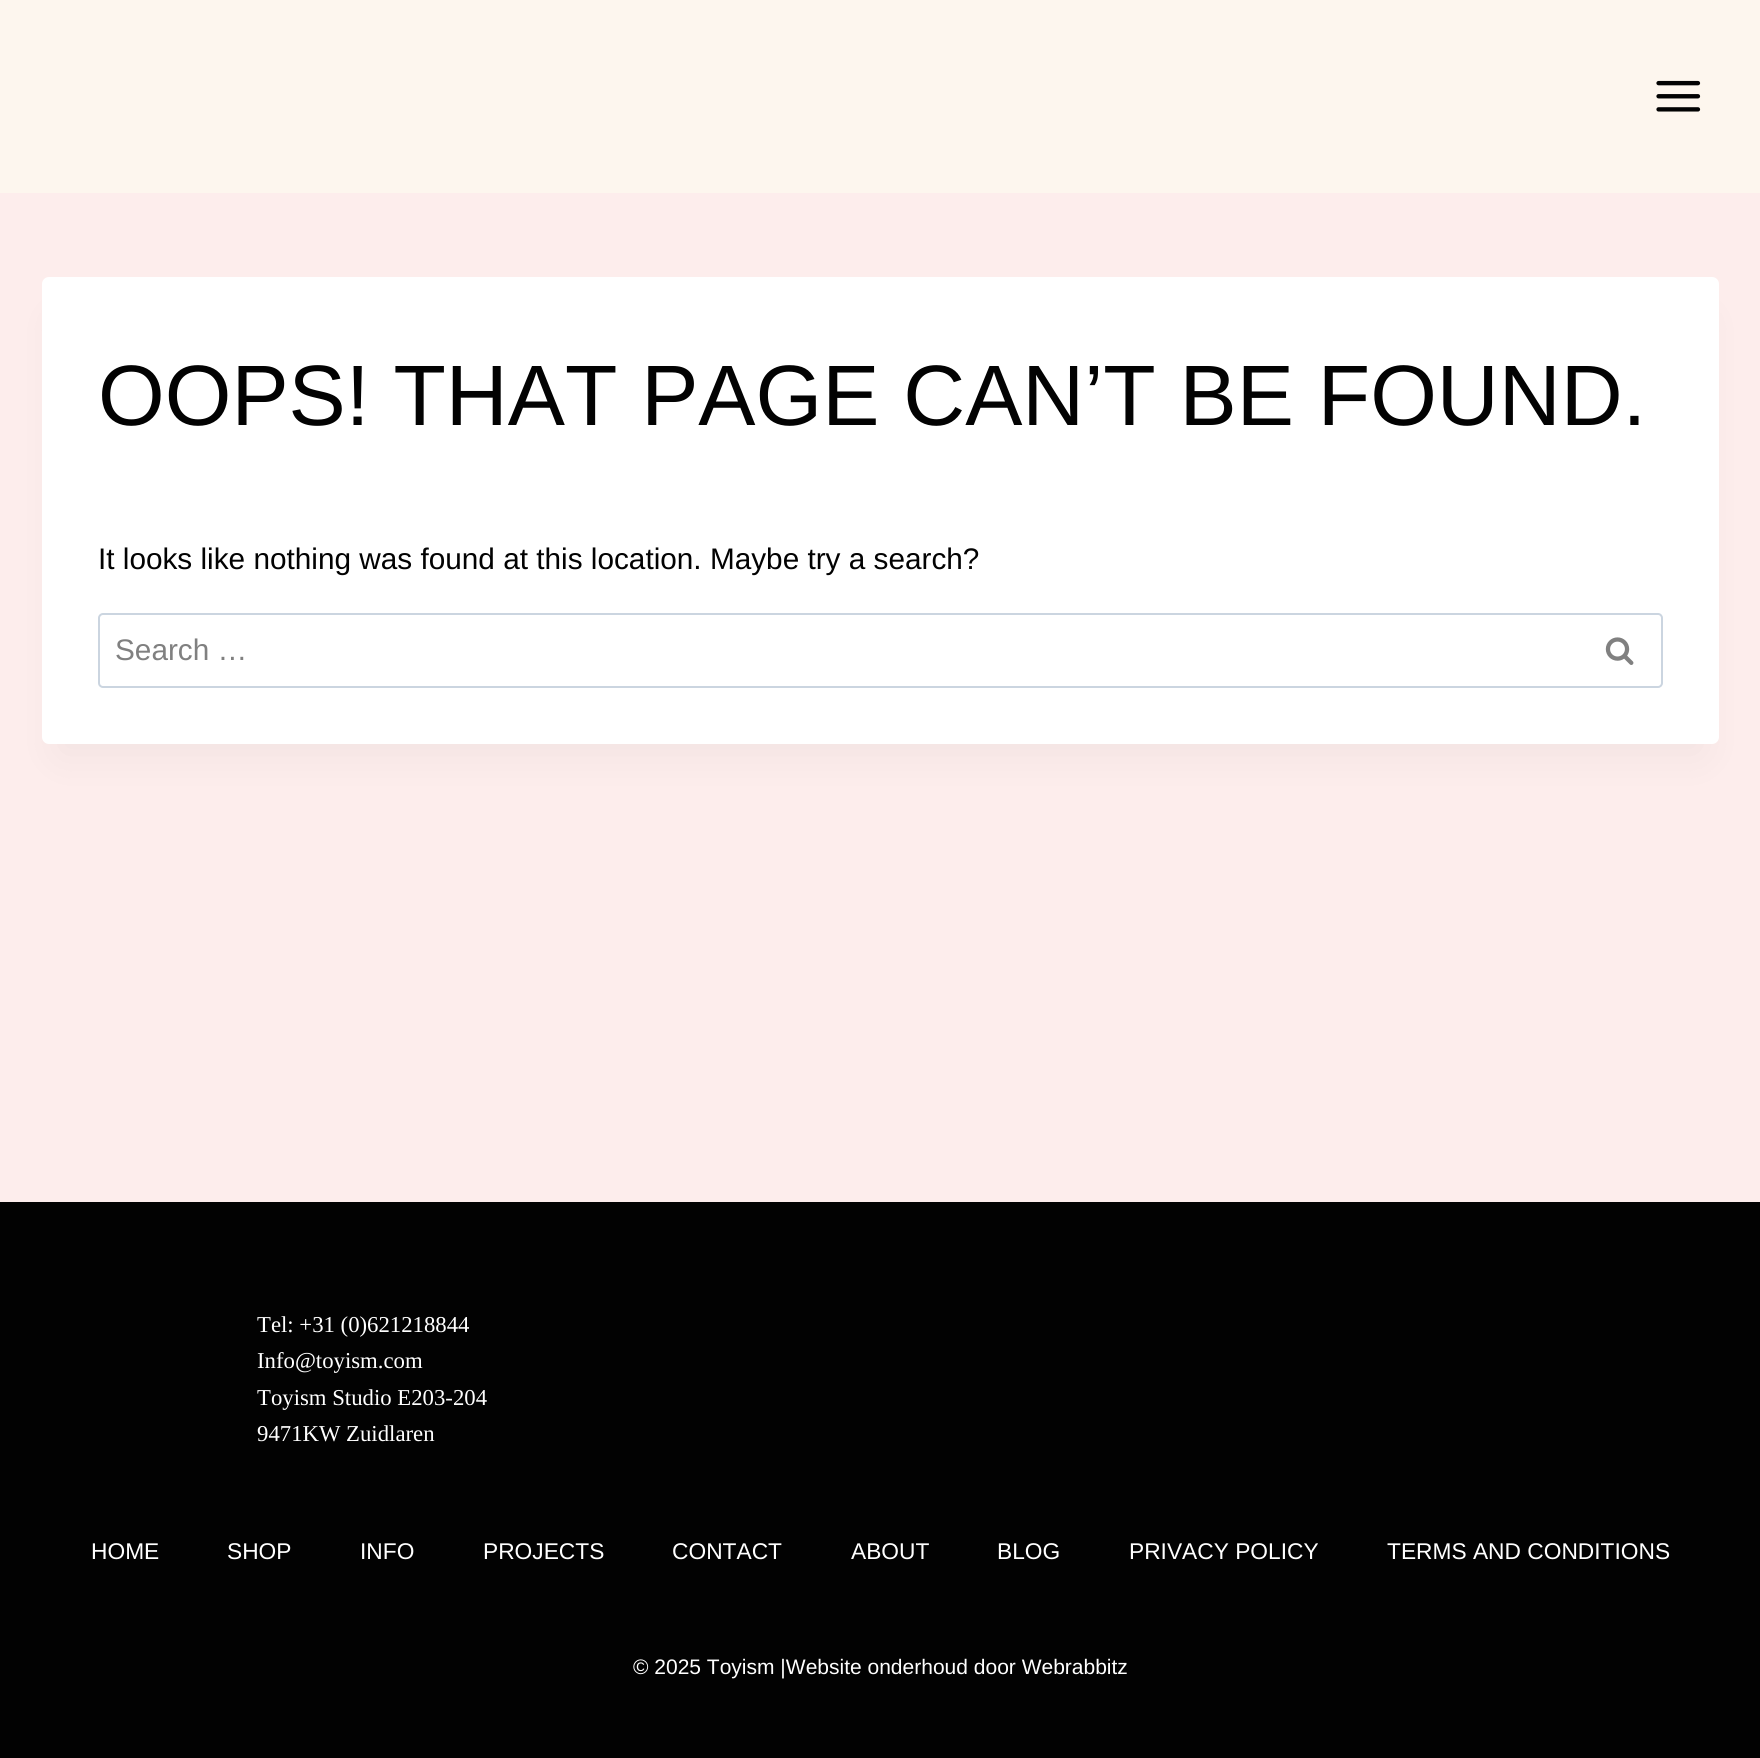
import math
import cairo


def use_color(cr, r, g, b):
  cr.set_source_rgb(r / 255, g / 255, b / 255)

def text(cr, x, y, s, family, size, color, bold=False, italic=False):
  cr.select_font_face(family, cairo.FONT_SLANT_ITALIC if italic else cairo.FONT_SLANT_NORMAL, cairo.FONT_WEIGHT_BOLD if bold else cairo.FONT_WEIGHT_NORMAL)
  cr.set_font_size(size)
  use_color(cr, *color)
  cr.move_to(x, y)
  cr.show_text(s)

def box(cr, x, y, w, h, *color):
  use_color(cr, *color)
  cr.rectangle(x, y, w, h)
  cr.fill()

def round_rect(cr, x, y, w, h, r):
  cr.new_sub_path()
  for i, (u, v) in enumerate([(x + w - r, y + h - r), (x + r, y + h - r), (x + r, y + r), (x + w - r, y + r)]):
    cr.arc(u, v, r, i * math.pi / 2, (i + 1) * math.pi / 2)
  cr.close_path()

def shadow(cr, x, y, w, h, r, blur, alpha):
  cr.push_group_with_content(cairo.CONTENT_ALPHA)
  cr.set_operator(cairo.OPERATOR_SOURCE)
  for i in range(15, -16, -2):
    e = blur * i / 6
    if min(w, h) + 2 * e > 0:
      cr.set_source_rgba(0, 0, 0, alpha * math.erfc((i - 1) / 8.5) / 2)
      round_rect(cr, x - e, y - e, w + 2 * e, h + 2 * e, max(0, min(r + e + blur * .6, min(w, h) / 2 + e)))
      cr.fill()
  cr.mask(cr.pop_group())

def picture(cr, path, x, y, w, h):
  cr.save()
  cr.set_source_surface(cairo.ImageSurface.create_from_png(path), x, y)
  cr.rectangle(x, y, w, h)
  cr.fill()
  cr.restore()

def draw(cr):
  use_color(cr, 253, 237, 236)
  cr.paint()
  box(cr, 0, 0, 1760, 193, 253, 246, 238)
  picture(cr, "img_01.png", 1656, 80, 45, 32)
  use_color(cr, 0, 0, 0)
  shadow(cr, 60, 320, 1641, 433, 0, 22, 0.05)
  use_color(cr, 255, 255, 255)
  round_rect(cr, 42, 277, 1677, 467, 7)
  cr.fill()
  round_rect(cr, 99, 614, 1563, 73, 4)
  use_color(cr, 203, 213, 224)
  cr.stroke()
  picture(cr, "img_02.png", 1605, 637, 29, 28)
  box(cr, 0, 1202, 1760, 556, 2, 2, 2)
  text(cr, 98, 425, "OOPS! THAT PAGE CAN’T BE FOUND.", "Liberation Sans", 85.75, (2, 2, 2))
  text(cr, 98, 569, "It looks like nothing was found at this location. Maybe try a search?", "Liberation Sans", 29.75, (2, 2, 2))
  text(cr, 115, 660, "Search …", "Liberation Sans", 29.75, (128, 128, 128))
  text(cr, 257, 1332, "Tel: +31 (0)621218844", "Liberation Serif", 22.75, (255, 255, 255))
  text(cr, 257, 1368, "Info@toyism.com", "Liberation Serif", 22.75, (255, 255, 255))
  text(cr, 257, 1405, "Toyism Studio E203-204", "Liberation Serif", 22.75, (255, 255, 255))
  text(cr, 257, 1441, "9471KW Zuidlaren", "Liberation Serif", 22.75, (255, 255, 255))
  text(cr, 91, 1559, "HOME", "Liberation Sans", 22.75, (255, 255, 255))
  text(cr, 227, 1559, "SHOP", "Liberation Sans", 22.75, (255, 255, 255))
  text(cr, 360, 1559, "INFO", "Liberation Sans", 22.75, (255, 255, 255))
  text(cr, 483, 1559, "PROJECTS", "Liberation Sans", 22.75, (255, 255, 255))
  text(cr, 672, 1559, "CONTACT", "Liberation Sans", 22.75, (255, 255, 255))
  text(cr, 851, 1559, "ABOUT", "Liberation Sans", 22.75, (255, 255, 255))
  text(cr, 997, 1559, "BLOG", "Liberation Sans", 22.75, (255, 255, 255))
  text(cr, 1129, 1559, "PRIVACY POLICY", "Liberation Sans", 22.75, (255, 255, 255))
  text(cr, 1387, 1559, "TERMS AND CONDITIONS", "Liberation Sans", 22.75, (255, 255, 255))
  text(cr, 633, 1674, "© 2025 Toyism |Website onderhoud door Webrabbitz", "Liberation Sans", 21, (255, 255, 255))


surface = cairo.ImageSurface(cairo.FORMAT_RGB24, 1760, 1758)
cr = cairo.Context(surface)
options = cairo.FontOptions()
options.set_hint_metrics(cairo.HINT_METRICS_OFF)
options.set_hint_style(cairo.HINT_STYLE_NONE)
cr.set_font_options(options)
cr.set_miter_limit(4)
draw(cr)
surface.write_to_png("out.png")
